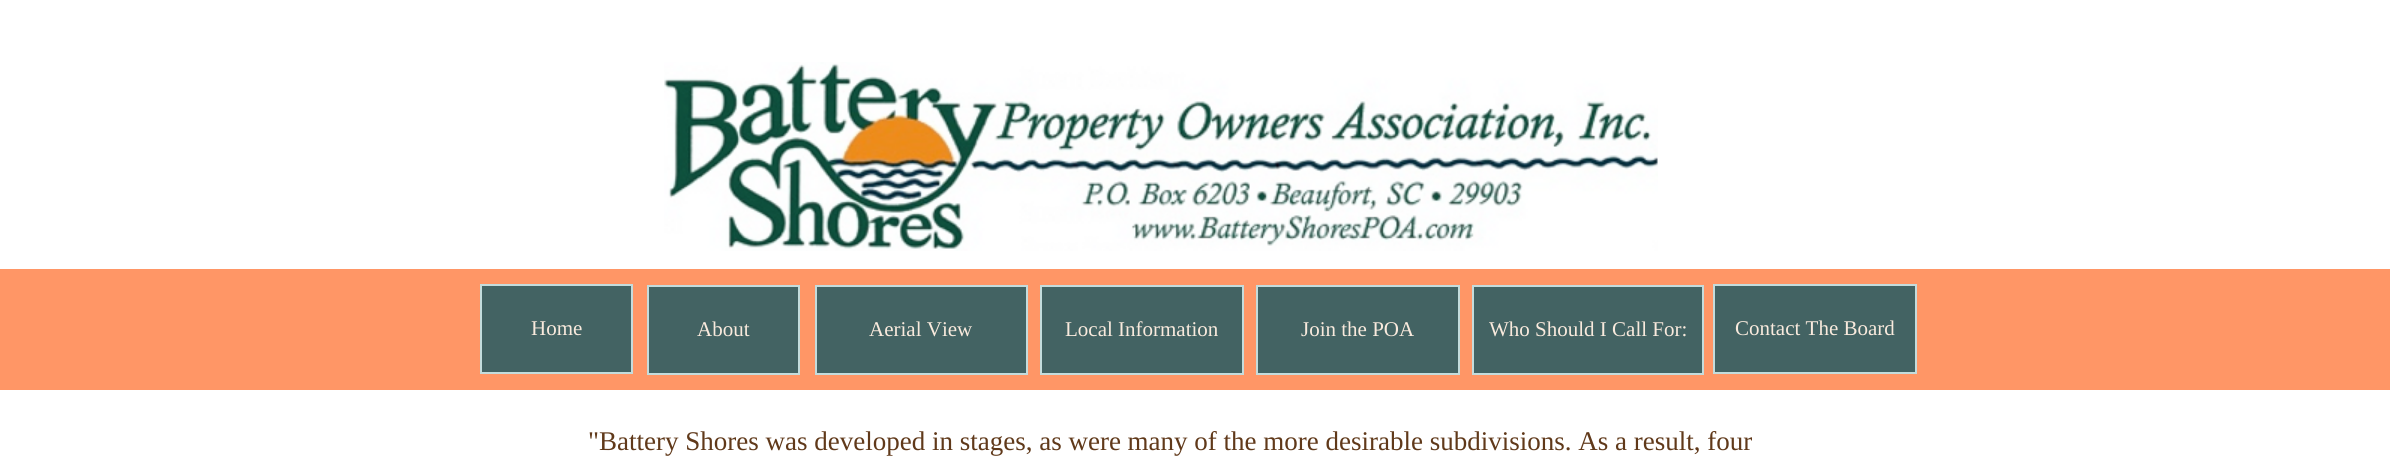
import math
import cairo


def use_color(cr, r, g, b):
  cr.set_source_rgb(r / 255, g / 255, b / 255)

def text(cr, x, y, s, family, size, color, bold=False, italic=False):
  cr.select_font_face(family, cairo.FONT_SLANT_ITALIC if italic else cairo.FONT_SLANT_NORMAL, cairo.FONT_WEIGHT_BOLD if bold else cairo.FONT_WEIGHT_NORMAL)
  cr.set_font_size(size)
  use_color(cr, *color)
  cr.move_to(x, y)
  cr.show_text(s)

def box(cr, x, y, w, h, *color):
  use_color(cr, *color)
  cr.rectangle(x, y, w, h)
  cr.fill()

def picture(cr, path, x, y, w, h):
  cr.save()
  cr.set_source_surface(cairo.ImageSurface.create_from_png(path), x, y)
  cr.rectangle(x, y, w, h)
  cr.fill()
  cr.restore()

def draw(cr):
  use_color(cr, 255, 255, 255)
  cr.paint()
  picture(cr, "img_01.png", 664, 62, 994, 189)
  box(cr, 0, 269, 2390, 121, 255, 150, 102)
  use_color(cr, 67, 99, 99)
  cr.rectangle(481, 285, 151, 88)
  cr.fill_preserve()
  use_color(cr, 196, 220, 220)
  cr.stroke()
  use_color(cr, 67, 99, 99)
  cr.rectangle(648, 286, 151, 88)
  cr.fill_preserve()
  use_color(cr, 196, 220, 220)
  cr.stroke()
  use_color(cr, 67, 99, 99)
  cr.rectangle(816, 286, 211, 88)
  cr.fill_preserve()
  use_color(cr, 196, 220, 220)
  cr.stroke()
  use_color(cr, 67, 99, 99)
  cr.rectangle(1041, 286, 202, 88)
  cr.fill_preserve()
  use_color(cr, 196, 220, 220)
  cr.stroke()
  use_color(cr, 67, 99, 99)
  cr.rectangle(1257, 286, 202, 88)
  cr.fill_preserve()
  use_color(cr, 196, 220, 220)
  cr.stroke()
  use_color(cr, 67, 99, 99)
  cr.rectangle(1473, 286, 230, 88)
  cr.fill_preserve()
  use_color(cr, 196, 220, 220)
  cr.stroke()
  use_color(cr, 67, 99, 99)
  cr.rectangle(1714, 285, 202, 88)
  cr.fill_preserve()
  use_color(cr, 196, 220, 220)
  cr.stroke()
  text(cr, 531, 335, "Home", "Liberation Serif", 21, (249, 234, 221))
  text(cr, 697, 336, "About", "Liberation Serif", 21, (249, 234, 221))
  text(cr, 869, 336, "Aerial View", "Liberation Serif", 21, (249, 234, 221))
  text(cr, 1065, 336, "Local Information", "Liberation Serif", 21, (249, 234, 221))
  text(cr, 1301, 336, "Join the POA", "Liberation Serif", 21, (249, 234, 221))
  text(cr, 1489, 336, "Who Should I Call For:", "Liberation Serif", 21, (249, 234, 221))
  text(cr, 1735, 335, "Contact The Board", "Liberation Serif", 21, (249, 234, 221))
  text(cr, 588, 450, "\"Battery Shores was developed in stages, as were many of the more desirable subdivisions. As a result, four", "Liberation Serif", 27, (96, 57, 26))


surface = cairo.ImageSurface(cairo.FORMAT_RGB24, 2390, 470)
cr = cairo.Context(surface)
options = cairo.FontOptions()
options.set_hint_metrics(cairo.HINT_METRICS_OFF)
options.set_hint_style(cairo.HINT_STYLE_NONE)
cr.set_font_options(options)
cr.set_miter_limit(4)
draw(cr)
surface.write_to_png("out.png")
